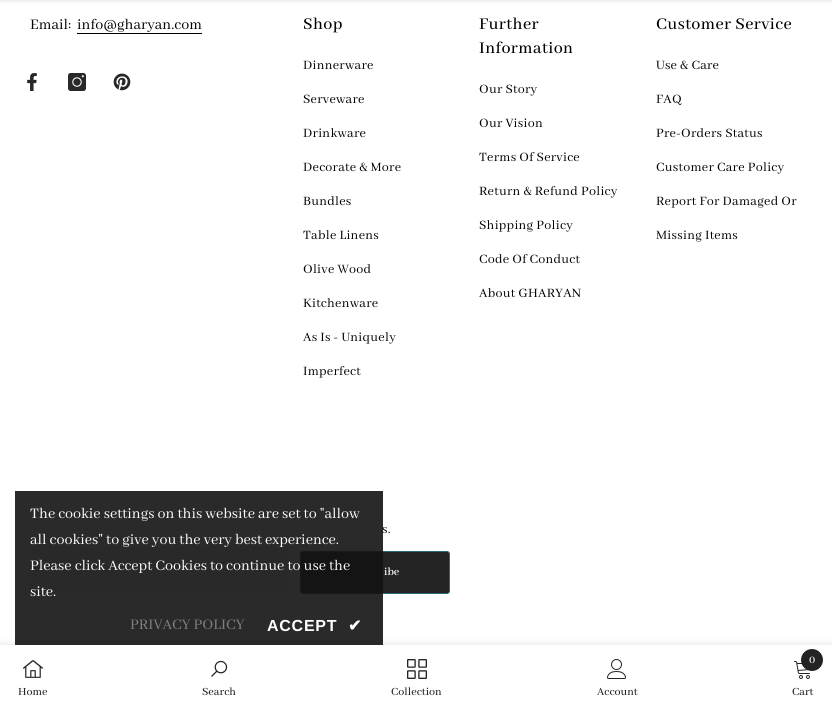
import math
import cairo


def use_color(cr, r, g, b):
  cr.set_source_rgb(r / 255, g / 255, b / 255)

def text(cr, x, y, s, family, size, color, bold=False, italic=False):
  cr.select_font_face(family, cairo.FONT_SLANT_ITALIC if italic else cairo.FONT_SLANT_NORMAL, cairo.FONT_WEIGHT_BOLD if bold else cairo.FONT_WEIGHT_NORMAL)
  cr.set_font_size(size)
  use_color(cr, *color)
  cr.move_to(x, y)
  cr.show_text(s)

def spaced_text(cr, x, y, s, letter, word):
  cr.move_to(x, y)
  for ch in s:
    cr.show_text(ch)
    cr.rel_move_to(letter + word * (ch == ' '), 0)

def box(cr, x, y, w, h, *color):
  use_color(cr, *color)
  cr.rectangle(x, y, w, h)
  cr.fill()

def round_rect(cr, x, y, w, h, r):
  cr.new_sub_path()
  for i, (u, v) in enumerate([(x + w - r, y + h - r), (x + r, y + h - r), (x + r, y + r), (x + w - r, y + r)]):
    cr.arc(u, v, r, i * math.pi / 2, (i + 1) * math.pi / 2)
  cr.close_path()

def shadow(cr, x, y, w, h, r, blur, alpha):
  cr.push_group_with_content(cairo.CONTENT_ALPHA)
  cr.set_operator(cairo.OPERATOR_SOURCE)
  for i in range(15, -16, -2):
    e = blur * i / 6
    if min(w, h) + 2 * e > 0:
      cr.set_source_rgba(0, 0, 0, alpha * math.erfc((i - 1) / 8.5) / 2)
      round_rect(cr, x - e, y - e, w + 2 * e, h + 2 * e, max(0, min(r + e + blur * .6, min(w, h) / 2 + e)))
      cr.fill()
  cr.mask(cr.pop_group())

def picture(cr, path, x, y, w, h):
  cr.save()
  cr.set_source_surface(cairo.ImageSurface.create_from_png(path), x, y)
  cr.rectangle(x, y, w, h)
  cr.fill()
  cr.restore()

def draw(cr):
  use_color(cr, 255, 255, 255)
  cr.paint()
  use_color(cr, 0, 0, 0)
  shadow(cr, 0, -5, 832, 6, 0, 1.5, 0.1)
  box(cr, 77, 33, 125, 1, 0, 0, 0)
  picture(cr, "img_01.png", 27, 73, 10, 18)
  picture(cr, "img_02.png", 68, 73, 18, 18)
  picture(cr, "img_03.png", 113, 73, 18, 18)
  use_color(cr, 246, 246, 246)
  round_rect(cr, 30, 548, 260, 49, 3)
  cr.fill()
  use_color(cr, 35, 35, 35)
  round_rect(cr, 300.5, 551.5, 149, 42, 2.5)
  cr.fill_preserve()
  use_color(cr, 42, 104, 118)
  cr.set_line_width(1)
  cr.stroke()
  text(cr, 30, 29, "Email:", "Abhaya Libre", 16, (0, 0, 0))
  text(cr, 77, 29, "info@gharyan.com", "Abhaya Libre", 16, (0, 0, 0))
  cr.select_font_face("Abhaya Libre Medium Medium")
  cr.set_font_size(18)
  spaced_text(cr, 303, 29, "Shop", 0.4, 0)
  cr.select_font_face("Abhaya Libre")
  cr.set_font_size(14)
  spaced_text(cr, 303, 69, "Dinnerware", 0.25, 0)
  spaced_text(cr, 303, 103, "Serveware", 0.25, 0)
  spaced_text(cr, 303, 137, "Drinkware", 0.25, 0)
  spaced_text(cr, 303, 171, "Decorate & More", 0.25, 0)
  spaced_text(cr, 303, 205, "Bundles", 0.25, 0)
  spaced_text(cr, 303, 239, "Table Linens", 0.25, 0)
  spaced_text(cr, 303, 273, "Olive Wood", 0.25, 0)
  spaced_text(cr, 303, 307, "Kitchenware", 0.25, 0)
  spaced_text(cr, 303, 341, "As Is - Uniquely", 0.25, 0)
  spaced_text(cr, 303, 375, "Imperfect", 0.25, 0)
  cr.select_font_face("Abhaya Libre Medium Medium")
  cr.set_font_size(18)
  spaced_text(cr, 479, 29, "Further", 0.4, 0)
  spaced_text(cr, 479, 53, "Information", 0.4, 0)
  cr.select_font_face("Abhaya Libre")
  cr.set_font_size(14)
  spaced_text(cr, 479, 93, "Our Story", 0.25, 0)
  spaced_text(cr, 479, 127, "Our Vision", 0.25, 0)
  spaced_text(cr, 479, 161, "Terms Of Service", 0.25, 0)
  spaced_text(cr, 479, 195, "Return & Refund Policy", 0.25, 0)
  spaced_text(cr, 479, 229, "Shipping Policy", 0.25, 0)
  spaced_text(cr, 479, 263, "Code Of Conduct", 0.25, 0)
  spaced_text(cr, 479, 297, "About GHARYAN", 0.25, 0)
  cr.select_font_face("Abhaya Libre Medium Medium")
  cr.set_font_size(18)
  spaced_text(cr, 656, 29, "Customer Service", 0.4, 0)
  cr.select_font_face("Abhaya Libre")
  cr.set_font_size(14)
  spaced_text(cr, 656, 69, "Use & Care", 0.25, 0)
  spaced_text(cr, 656, 103, "FAQ", 0.25, 0)
  spaced_text(cr, 656, 137, "Pre-Orders Status", 0.25, 0)
  spaced_text(cr, 656, 171, "Customer Care Policy", 0.25, 0)
  spaced_text(cr, 656, 205, "Report For Damaged Or", 0.25, 0)
  spaced_text(cr, 656, 239, "Missing Items", 0.25, 0)
  spaced_text(cr, 382, 533, "s.", 0.25, 0)
  text(cr, 384, 575, "ibe", "Abhaya Libre SemiBold SemiBold", 12, (255, 255, 255))
  cr.set_source_rgba(0.078, 0.078, 0.078, 0.9)
  cr.rectangle(15, 491, 368, 154)
  cr.fill()
  use_color(cr, 0, 0, 0)
  shadow(cr, 0, 645, 832, 64, 0, 4.5, 0.12)
  box(cr, 0, 645, 832, 64, 255, 255, 255)
  picture(cr, "img_08.png", 794, 661, 16, 18)
  use_color(cr, 35, 35, 35)
  cr.arc(812, 660, 11, 0, 2 * math.pi)
  cr.fill()
  text(cr, 809, 663, "0", "Abhaya Libre Medium Medium", 12, (255, 255, 255))
  text(cr, 792, 695, "Cart", "Abhaya Libre Medium Medium", 12, (35, 35, 35))
  picture(cr, "img_07.png", 607, 659, 19, 20)
  picture(cr, "img_06.png", 407, 659, 20, 20)
  picture(cr, "img_05.png", 211, 660, 17, 17)
  picture(cr, "img_04.png", 23, 660, 20, 18)
  text(cr, 597, 695, "Account", "Abhaya Libre Medium Medium", 12, (35, 35, 35))
  text(cr, 391, 695, "Collection", "Abhaya Libre Medium Medium", 12, (35, 35, 35))
  text(cr, 202, 695, "Search", "Abhaya Libre Medium Medium", 12, (35, 35, 35))
  text(cr, 18, 695, "Home", "Abhaya Libre Medium Medium", 12, (35, 35, 35))
  text(cr, 30, 518, "The cookie settings on this website are set to \"allow", "Abhaya Libre", 16, (255, 255, 255))
  text(cr, 30, 544, "all cookies\" to give you the very best experience.", "Abhaya Libre", 16, (255, 255, 255))
  text(cr, 30, 570, "Please click Accept Cookies to continue to use the", "Abhaya Libre", 16, (255, 255, 255))
  text(cr, 30, 596, "site.", "Abhaya Libre", 16, (255, 255, 255))
  text(cr, 130, 629, "PRIVACY POLICY", "Abhaya Libre", 16, (129, 129, 129))
  cr.select_font_face("Liberation Sans", cairo.FONT_SLANT_NORMAL, cairo.FONT_WEIGHT_BOLD)
  use_color(cr, 255, 255, 255)
  spaced_text(cr, 267, 631, "ACCEPT", 0.75, 0)
  cr.select_font_face("DejaVu Sans", cairo.FONT_SLANT_NORMAL, cairo.FONT_WEIGHT_BOLD)
  spaced_text(cr, 348, 631, "✔", 0.75, 0)


surface = cairo.ImageSurface(cairo.FORMAT_RGB24, 832, 709)
cr = cairo.Context(surface)
options = cairo.FontOptions()
options.set_hint_metrics(cairo.HINT_METRICS_OFF)
options.set_hint_style(cairo.HINT_STYLE_NONE)
cr.set_font_options(options)
cr.set_miter_limit(4)
draw(cr)
surface.write_to_png("out.png")
